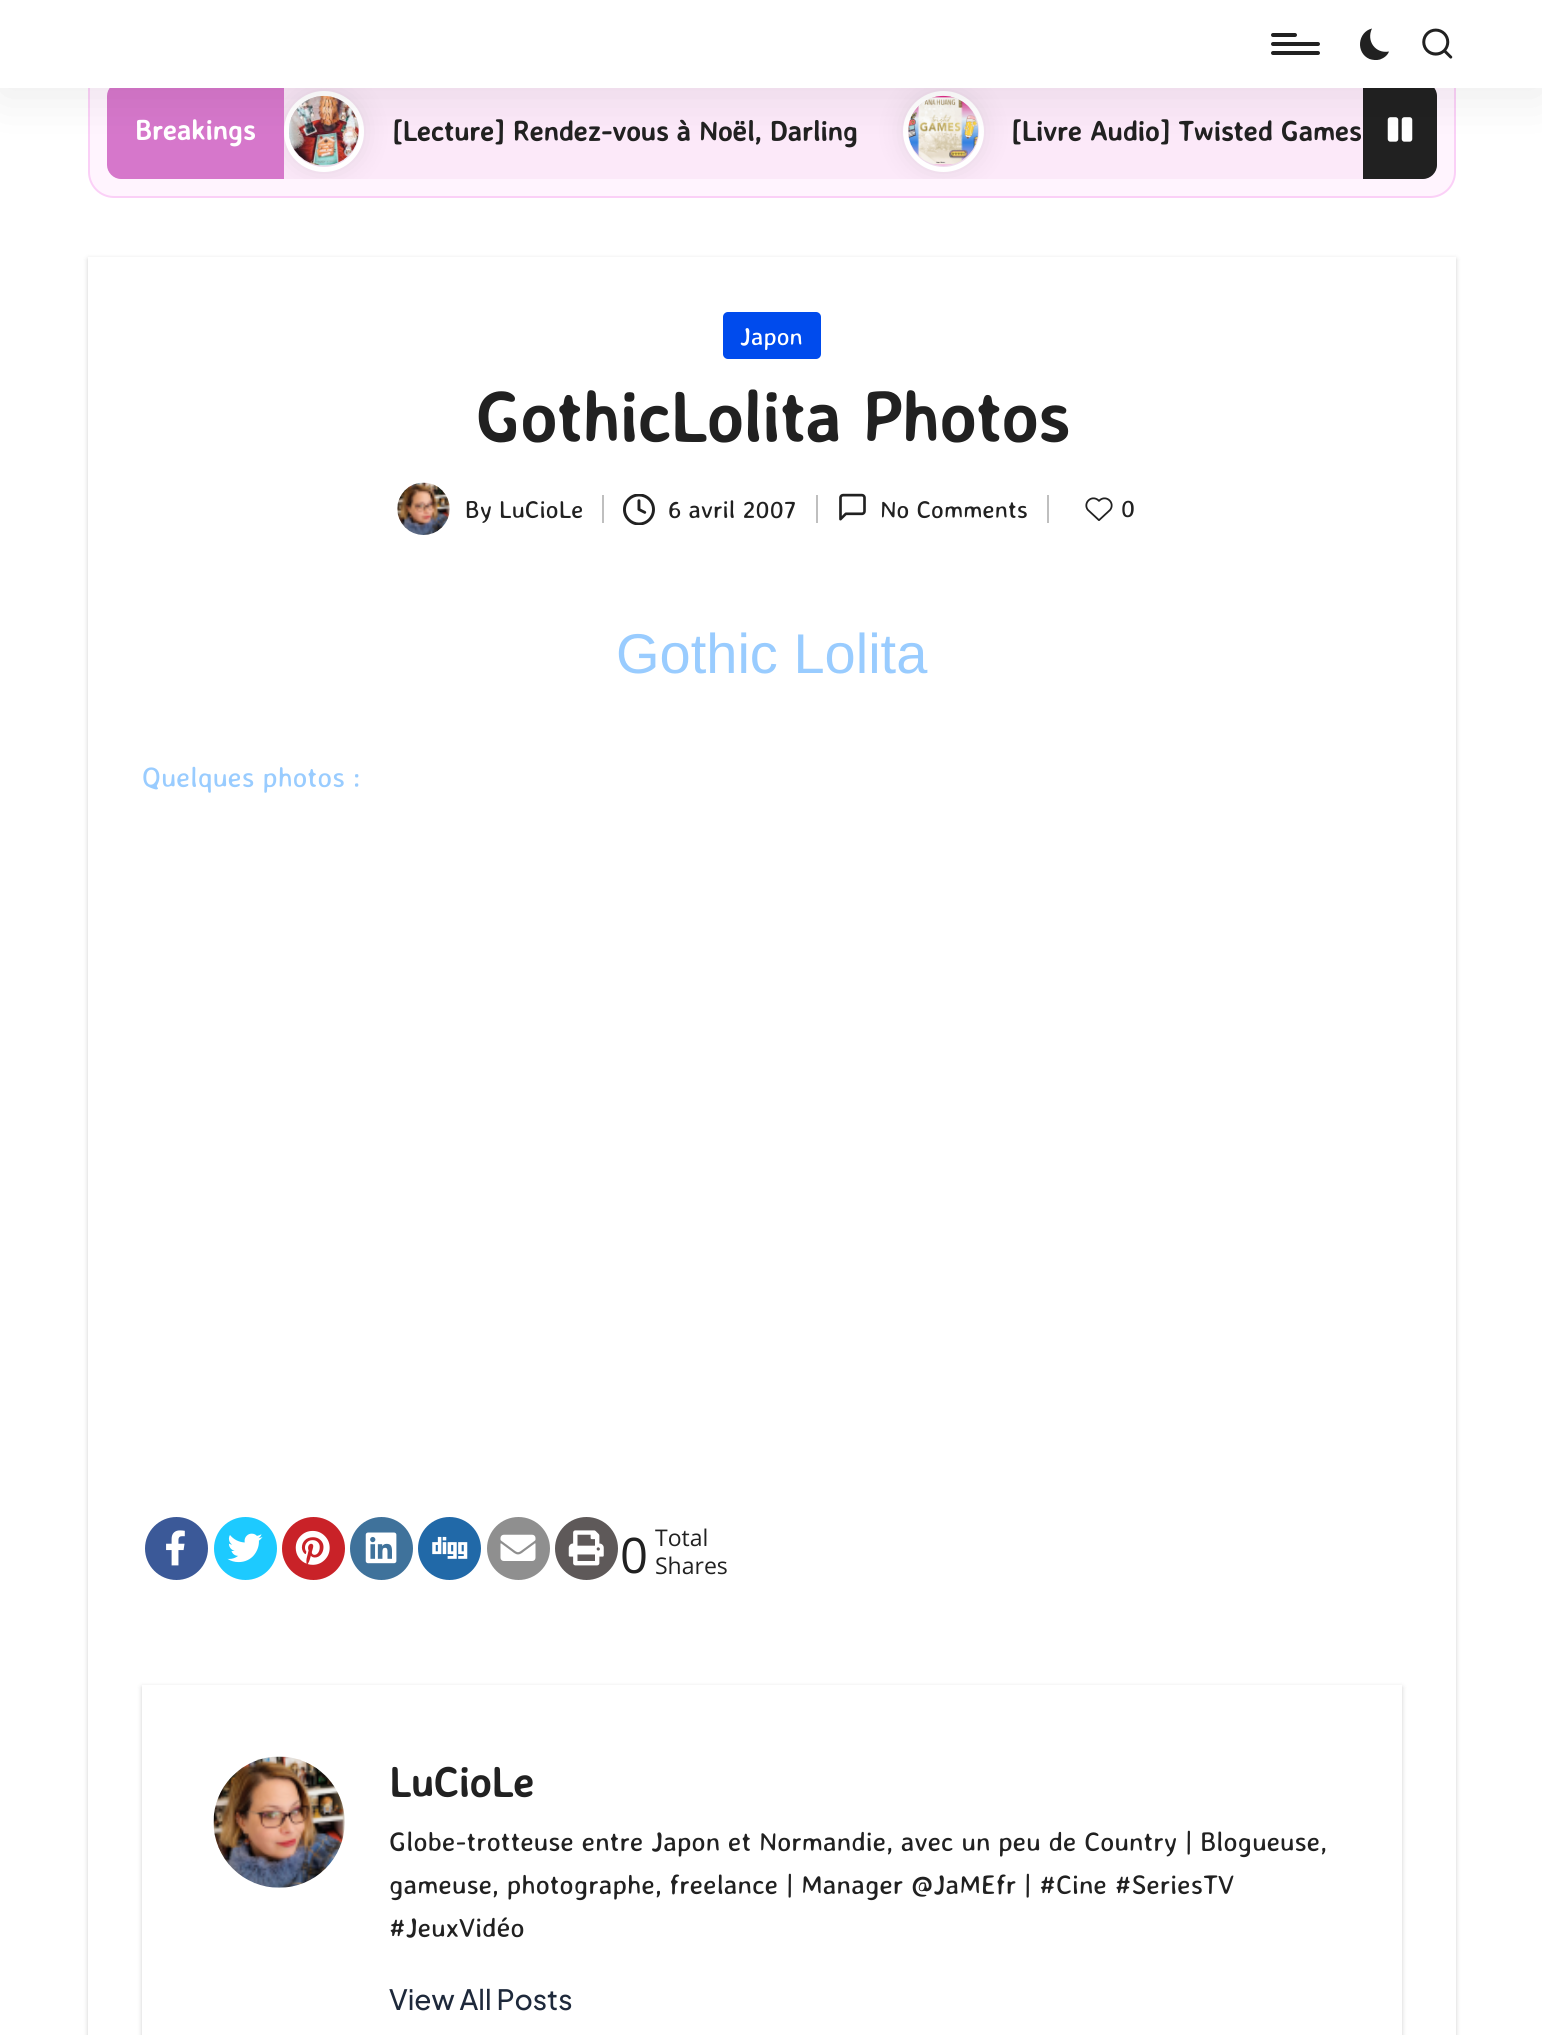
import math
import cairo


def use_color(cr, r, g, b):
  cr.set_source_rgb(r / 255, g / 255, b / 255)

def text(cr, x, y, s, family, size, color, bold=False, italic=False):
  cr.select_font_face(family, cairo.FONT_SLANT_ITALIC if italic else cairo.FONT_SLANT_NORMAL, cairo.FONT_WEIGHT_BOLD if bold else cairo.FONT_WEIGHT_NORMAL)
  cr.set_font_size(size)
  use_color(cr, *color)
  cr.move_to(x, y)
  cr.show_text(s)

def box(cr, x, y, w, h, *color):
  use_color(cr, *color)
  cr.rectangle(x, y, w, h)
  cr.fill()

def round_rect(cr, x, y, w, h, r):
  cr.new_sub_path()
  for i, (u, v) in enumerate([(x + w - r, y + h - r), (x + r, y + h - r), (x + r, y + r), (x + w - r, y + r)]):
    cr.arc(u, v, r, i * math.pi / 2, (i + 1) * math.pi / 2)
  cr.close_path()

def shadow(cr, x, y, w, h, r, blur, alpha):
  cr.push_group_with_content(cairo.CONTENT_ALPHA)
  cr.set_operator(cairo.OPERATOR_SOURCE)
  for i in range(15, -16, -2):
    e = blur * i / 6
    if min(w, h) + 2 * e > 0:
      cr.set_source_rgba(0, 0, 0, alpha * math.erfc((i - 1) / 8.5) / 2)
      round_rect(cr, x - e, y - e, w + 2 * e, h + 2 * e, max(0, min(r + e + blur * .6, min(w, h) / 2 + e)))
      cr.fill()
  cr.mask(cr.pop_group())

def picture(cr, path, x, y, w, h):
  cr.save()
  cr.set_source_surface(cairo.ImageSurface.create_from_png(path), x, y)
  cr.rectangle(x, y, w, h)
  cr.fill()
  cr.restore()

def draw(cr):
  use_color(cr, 255, 255, 255)
  cr.paint()
  use_color(cr, 255, 244, 254)
  round_rect(cr, 89, 64, 1366, 133, 25)
  cr.fill_preserve()
  use_color(cr, 251, 208, 247)
  cr.stroke()
  use_color(cr, 214, 119, 203)
  cr.new_path()
  cr.move_to(121, 82)
  cr.line_to(284, 82)
  cr.line_to(284, 179)
  cr.line_to(121, 179)
  cr.curve_to(113.5, 179, 107, 172.5, 107, 165)
  cr.line_to(107, 96)
  cr.curve_to(107, 88.5, 113.5, 82, 121, 82)
  cr.close_path()
  cr.fill()
  box(cr, 284, 88, 1079, 91, 252, 233, 249)
  cr.save()
  cr.rectangle(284, 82, 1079, 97)
  cr.clip()
  use_color(cr, 0, 0, 0)
  shadow(cr, 284, 91, 80, 81, 40, 13, 0.09)
  cr.restore()
  round_rect(cr, 286.5, 93.5, 75, 76, 37.5)
  use_color(cr, 255, 255, 255)
  cr.set_line_width(5)
  cr.stroke()
  picture(cr, "img_02.png", 289, 95, 70, 71)
  cr.save()
  cr.rectangle(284, 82, 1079, 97)
  cr.clip()
  use_color(cr, 0, 0, 0)
  shadow(cr, 903, 91, 81, 81, 40.5, 13, 0.09)
  cr.restore()
  cr.arc(943.5, 131.5, 38, 0, 2 * math.pi)
  cr.stroke()
  picture(cr, "img_03.png", 908, 95, 71, 71)
  use_color(cr, 33, 33, 33)
  cr.new_path()
  cr.move_to(1363, 82)
  cr.line_to(1423, 82)
  cr.curve_to(1430.5, 82, 1437, 88.5, 1437, 96)
  cr.line_to(1437, 165)
  cr.curve_to(1437, 172.5, 1430.5, 179, 1423, 179)
  cr.line_to(1363, 179)
  cr.close_path()
  cr.fill()
  picture(cr, "img_04.png", 1387, 117, 26, 25)
  use_color(cr, 0, 0, 0)
  shadow(cr, 0, 7, 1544, 88, 0, 26, 0.08)
  box(cr, 0, 0, 1542, 88, 255, 255, 255)
  use_color(cr, 33, 33, 33)
  round_rect(cr, 1271, 42, 49, 4, 2)
  cr.fill()
  round_rect(cr, 1271, 33, 26, 4, 2)
  cr.fill()
  round_rect(cr, 1271, 51, 49, 4, 2)
  cr.fill()
  cr.new_path()
  cr.move_to(1389, 51.5)
  cr.curve_to(1375.5, 54, 1366, 41, 1372, 28.5)
  cr.curve_to(1357.5, 32, 1355.5, 53, 1369.5, 59)
  cr.curve_to(1372.5, 60, 1376.5, 60.5, 1380, 59.5)
  cr.curve_to(1384, 58, 1387.5, 55.5, 1389, 51.5)
  cr.close_path()
  cr.fill()
  picture(cr, "img_01.png", 1422, 28, 31, 31)
  use_color(cr, 0, 0, 0)
  shadow(cr, 88, 259, 1368, 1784, 0, 2.5, 0.18)
  box(cr, 88, 257, 1368, 1778, 255, 255, 255)
  use_color(cr, 0, 75, 237)
  round_rect(cr, 723, 312, 98, 47, 5)
  cr.fill()
  picture(cr, "img_05.png", 397, 482, 53, 53)
  box(cr, 602, 495, 2, 28, 191, 191, 191)
  picture(cr, "img_06.png", 623, 494, 32, 31)
  box(cr, 816, 495, 2, 28, 191, 191, 191)
  picture(cr, "img_07.png", 839, 493, 27, 28)
  box(cr, 1047, 495, 2, 28, 191, 191, 191)
  picture(cr, "img_08.png", 1085, 497, 28, 24)
  use_color(cr, 59, 89, 152)
  cr.arc(176.5, 1548.5, 31.5, 0, 2 * math.pi)
  cr.fill()
  picture(cr, "img_09.png", 166, 1530, 19, 36)
  use_color(cr, 29, 202, 255)
  cr.arc(245.5, 1548.5, 31.5, 0, 2 * math.pi)
  cr.fill()
  picture(cr, "img_10.png", 227, 1533, 36, 30)
  use_color(cr, 201, 34, 40)
  cr.arc(313.5, 1548.5, 31.5, 0, 2 * math.pi)
  cr.fill()
  picture(cr, "img_11.png", 295, 1530, 35, 35)
  use_color(cr, 63, 114, 155)
  cr.arc(381.5, 1548.5, 31.5, 0, 2 * math.pi)
  cr.fill()
  picture(cr, "img_12.png", 365, 1532, 32, 32)
  use_color(cr, 33, 105, 168)
  cr.arc(449.5, 1548.5, 31.5, 0, 2 * math.pi)
  cr.fill()
  picture(cr, "img_13.png", 432, 1536, 36, 23)
  use_color(cr, 143, 143, 143)
  cr.arc(518.5, 1548.5, 31.5, 0, 2 * math.pi)
  cr.fill()
  picture(cr, "img_14.png", 500, 1534, 36, 27)
  use_color(cr, 94, 89, 89)
  cr.arc(586.5, 1548.5, 31.5, 0, 2 * math.pi)
  cr.fill()
  picture(cr, "img_15.png", 568, 1530, 36, 36)
  cr.save()
  cr.set_fill_rule(cairo.FILL_RULE_EVEN_ODD)
  cr.new_path()
  cr.move_to(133, 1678)
  cr.line_to(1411, 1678)
  cr.line_to(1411, 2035)
  cr.line_to(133, 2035)
  cr.close_path()
  cr.move_to(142, 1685)
  cr.line_to(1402, 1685)
  cr.line_to(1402, 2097)
  cr.line_to(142, 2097)
  cr.close_path()
  cr.clip()
  use_color(cr, 0, 0, 0)
  shadow(cr, 142, 1687, 1260, 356, 0, 2.5, 0.18)
  cr.restore()
  picture(cr, "img_16.png", 213, 1756, 132, 132)
  text(cr, 135, 140, "Breakings", "Averia Sans Libre", 28, (255, 255, 255), bold=True)
  text(cr, 392, 141, "[Lecture] Rendez-vous à Noël, Darling", "Averia Sans Libre", 28, (33, 33, 33), bold=True)
  text(cr, 1011, 141, "[Livre Audio] Twisted Games", "Averia Sans Libre", 28, (33, 33, 33), bold=True)
  text(cr, 740, 345, "Japon", "Averia Sans Libre", 24.5, (255, 255, 255))
  text(cr, 475, 442, "GothicLolita Photos", "Averia Sans Libre", 70, (33, 33, 33), bold=True)
  text(cr, 465, 518, "By LuCioLe", "Averia Sans Libre", 24.5, (33, 33, 33))
  text(cr, 668, 518, "6 avril 2007", "Averia Sans Libre", 24.5, (33, 33, 33))
  text(cr, 880, 518, "No Comments", "Averia Sans Libre", 24.5, (33, 33, 33))
  text(cr, 1121, 517, "0", "Averia Sans Libre", 24.5, (33, 33, 33))
  text(cr, 616, 673, "Gothic Lolita", "Liberation Sans", 56, (153, 204, 255))
  text(cr, 142, 787, "Quelques photos :", "Averia Sans Libre", 28, (153, 204, 255))
  text(cr, 620, 1573, "0", "Open Sans", 49, (33, 33, 33))
  text(cr, 655, 1546, "Total", "Open Sans", 23, (33, 33, 33))
  text(cr, 655, 1574, "Shares", "Open Sans", 23, (33, 33, 33))
  text(cr, 389, 1797, "LuCioLe", "Averia Sans Libre", 42, (33, 33, 33), bold=True)
  text(cr, 389, 1851, "Globe-trotteuse entre Japon et Normandie, avec un peu de Country | Blogueuse,", "Averia Sans Libre", 26.95, (33, 33, 33))
  text(cr, 389, 1894, "gameuse, photographe, freelance | Manager @JaMEfr | #Cine #SeriesTV", "Averia Sans Libre", 26.95, (33, 33, 33))
  text(cr, 389, 1937, "#JeuxVidéo", "Averia Sans Libre", 26.95, (33, 33, 33))
  text(cr, 389, 2010, "View All Posts", "Plus Jakarta Sans Medium", 28, (30, 41, 59))


surface = cairo.ImageSurface(cairo.FORMAT_RGB24, 1542, 2035)
cr = cairo.Context(surface)
options = cairo.FontOptions()
options.set_hint_metrics(cairo.HINT_METRICS_OFF)
options.set_hint_style(cairo.HINT_STYLE_NONE)
cr.set_font_options(options)
cr.set_miter_limit(4)
draw(cr)
surface.write_to_png("out.png")
